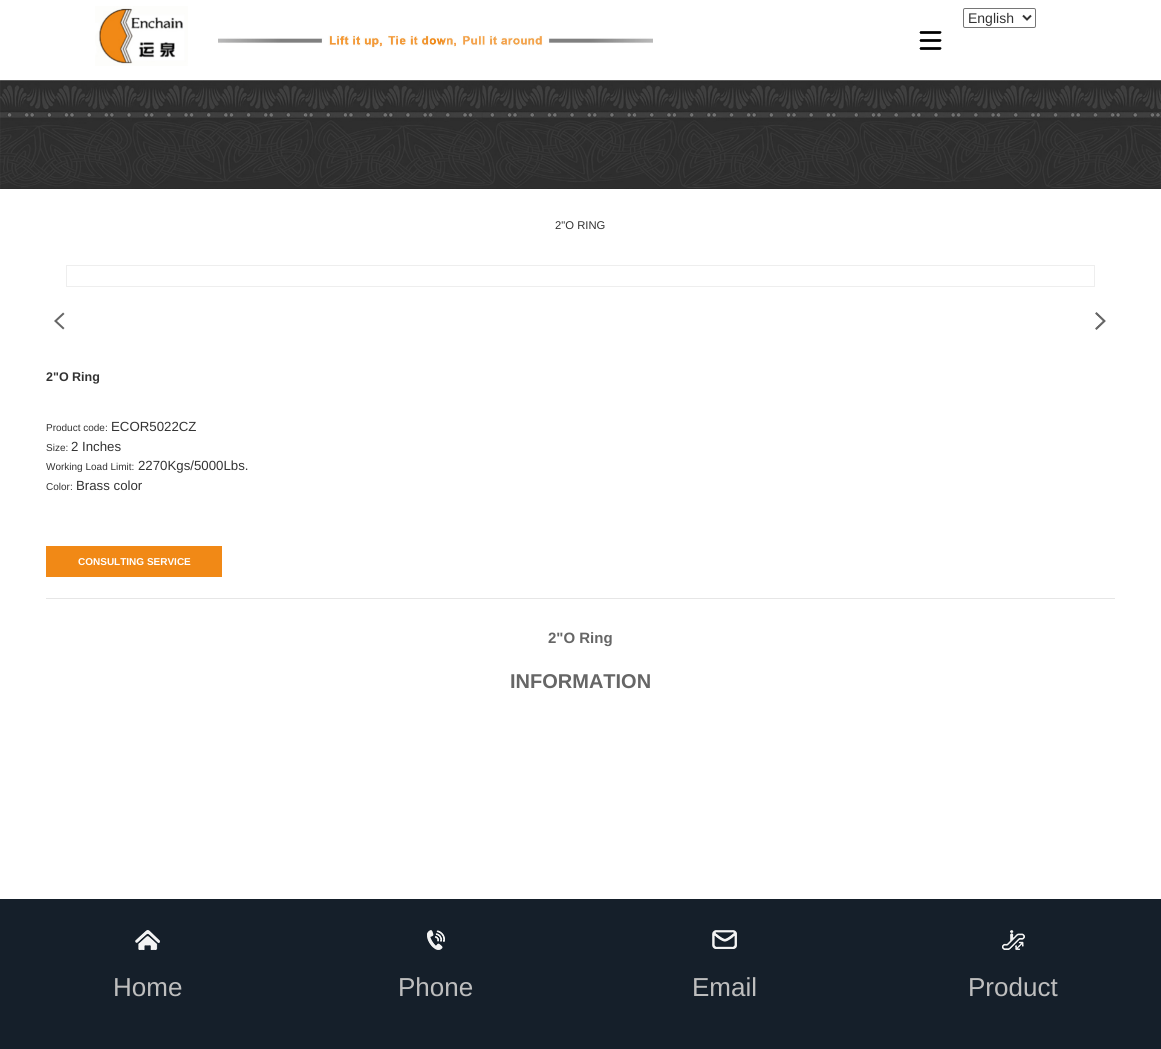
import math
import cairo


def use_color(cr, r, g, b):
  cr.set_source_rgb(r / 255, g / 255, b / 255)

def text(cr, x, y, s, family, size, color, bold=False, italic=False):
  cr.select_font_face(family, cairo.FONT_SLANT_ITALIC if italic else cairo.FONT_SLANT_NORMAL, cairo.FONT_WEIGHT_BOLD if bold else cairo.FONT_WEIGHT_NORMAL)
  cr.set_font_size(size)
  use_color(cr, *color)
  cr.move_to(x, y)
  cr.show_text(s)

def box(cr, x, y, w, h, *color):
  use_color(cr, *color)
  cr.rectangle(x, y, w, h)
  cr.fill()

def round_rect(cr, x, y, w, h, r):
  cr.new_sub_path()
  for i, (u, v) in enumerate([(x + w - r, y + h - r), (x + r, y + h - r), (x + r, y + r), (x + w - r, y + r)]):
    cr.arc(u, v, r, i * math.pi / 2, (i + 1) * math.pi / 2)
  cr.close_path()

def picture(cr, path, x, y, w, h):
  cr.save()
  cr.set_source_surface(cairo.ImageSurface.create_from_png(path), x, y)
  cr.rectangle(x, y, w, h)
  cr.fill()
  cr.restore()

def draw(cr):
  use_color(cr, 255, 255, 255)
  cr.paint()
  picture(cr, "img_01.png", 95, 6, 93, 60)
  picture(cr, "img_02.png", 218, 35, 435, 13)
  picture(cr, "img_03.png", 919, 31, 23, 19)
  round_rect(cr, 963.5, 8.5, 72, 19, 1.5)
  use_color(cr, 118, 118, 118)
  cr.set_line_width(1)
  cr.stroke()
  cr.new_path()
  cr.move_to(1023, 15.5)
  cr.line_to(1027, 19.5)
  cr.line_to(1031, 15.5)
  use_color(cr, 51, 51, 51)
  cr.set_line_width(2)
  cr.stroke()
  picture(cr, "img_04.png", 0, 80, 1161, 109)
  cr.rectangle(66.5, 265.5, 1028, 21)
  use_color(cr, 238, 238, 238)
  cr.set_line_width(1)
  cr.stroke()
  picture(cr, "img_05.png", 54, 312, 11, 18)
  picture(cr, "img_06.png", 1095, 312, 11, 18)
  box(cr, 46, 546, 176, 31, 241, 137, 22)
  box(cr, 46, 598, 1069, 1, 230, 230, 230)
  box(cr, 0, 899, 1161, 150, 21, 31, 42)
  picture(cr, "img_07.png", 135, 930, 25, 20)
  picture(cr, "img_08.png", 427, 930, 18, 20)
  picture(cr, "img_09.png", 712, 930, 25, 19)
  picture(cr, "img_10.png", 1002, 930, 23, 20)
  text(cr, 968, 23, "English", "Liberation Sans", 14, (51, 51, 51))
  text(cr, 555, 229, "2\"O RING", "Liberation Sans", 11.25, (51, 51, 51))
  text(cr, 46, 381, "2\"O Ring", "Liberation Sans", 12.5, (51, 51, 51), bold=True)
  text(cr, 46, 431, "Product code:", "Liberation Sans", 10, (51, 51, 51))
  text(cr, 111, 431, "ECOR5022CZ", "Liberation Sans", 13.25, (51, 51, 51))
  text(cr, 46, 451, "Size:", "Liberation Sans", 10, (51, 51, 51))
  text(cr, 71, 451, "2 Inches", "Liberation Sans", 13.25, (51, 51, 51))
  text(cr, 46, 470, "Working Load Limit:", "Liberation Sans", 10, (51, 51, 51))
  text(cr, 138, 470, "2270Kgs/5000Lbs.", "Liberation Sans", 13.25, (51, 51, 51))
  text(cr, 46, 490, "Color:", "Liberation Sans", 10, (51, 51, 51))
  text(cr, 76, 490, "Brass color", "Liberation Sans", 13.25, (51, 51, 51))
  text(cr, 78, 565, "CONSULTING SERVICE", "Liberation Sans", 10, (255, 255, 255), bold=True)
  text(cr, 548, 643, "2\"O Ring", "Liberation Sans", 15, (102, 102, 102), bold=True)
  text(cr, 510, 688, "INFORMATION", "Liberation Sans", 20, (102, 102, 102), bold=True)
  text(cr, 113, 996, "Home", "Liberation Sans", 26, (190, 190, 190))
  text(cr, 398, 996, "Phone", "Liberation Sans", 26, (190, 190, 190))
  text(cr, 692, 996, "Email", "Liberation Sans", 26, (190, 190, 190))
  text(cr, 968, 996, "Product", "Liberation Sans", 26, (190, 190, 190))


surface = cairo.ImageSurface(cairo.FORMAT_RGB24, 1161, 1049)
cr = cairo.Context(surface)
options = cairo.FontOptions()
options.set_hint_metrics(cairo.HINT_METRICS_OFF)
options.set_hint_style(cairo.HINT_STYLE_NONE)
cr.set_font_options(options)
cr.set_miter_limit(4)
draw(cr)
surface.write_to_png("out.png")
